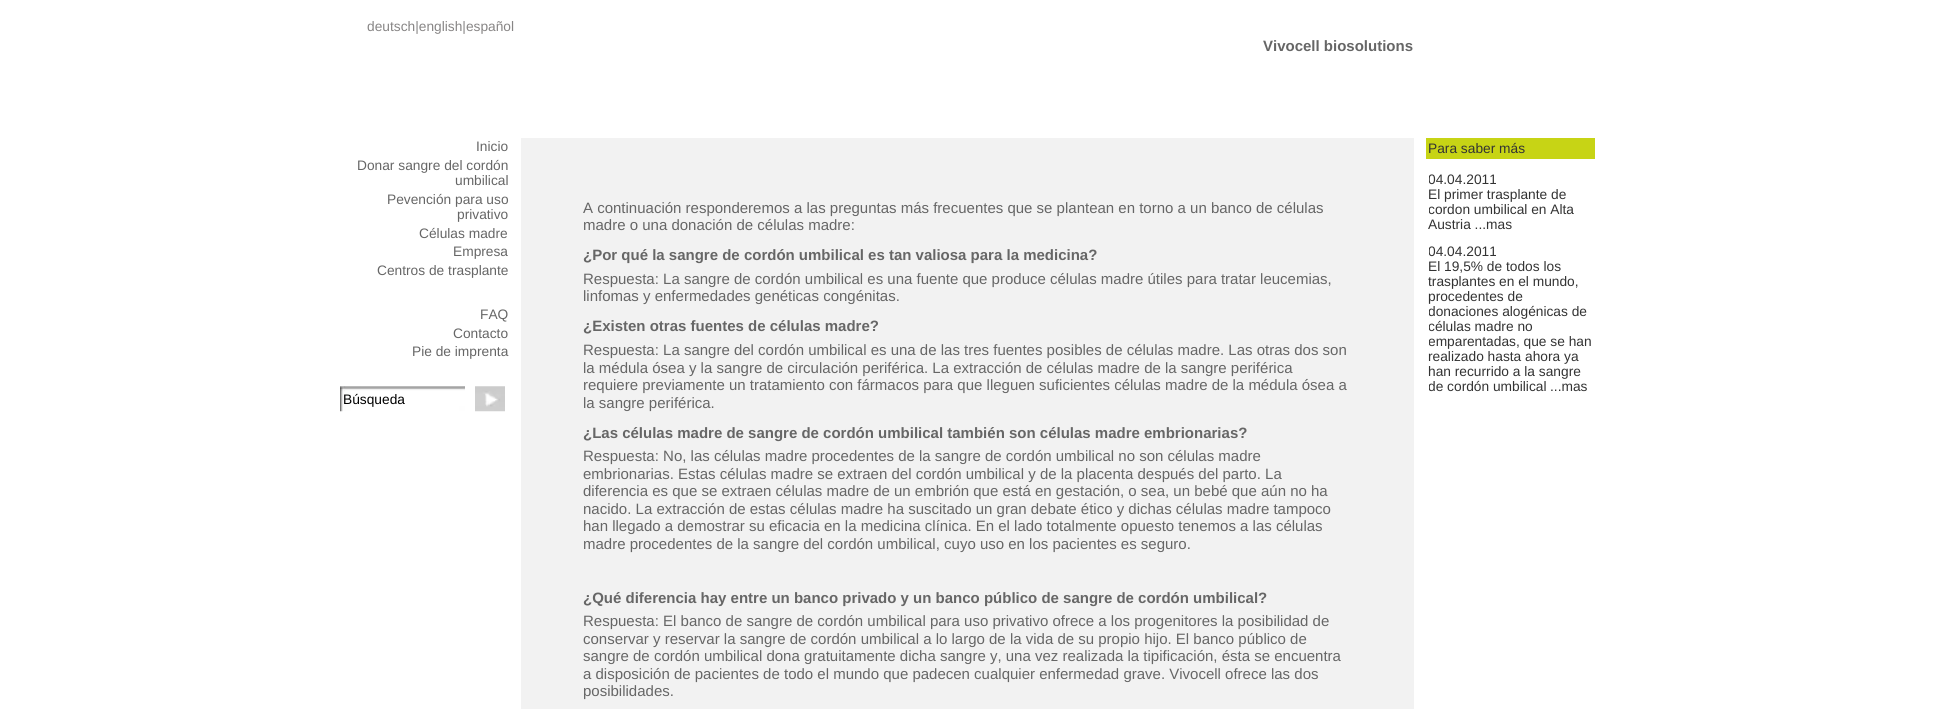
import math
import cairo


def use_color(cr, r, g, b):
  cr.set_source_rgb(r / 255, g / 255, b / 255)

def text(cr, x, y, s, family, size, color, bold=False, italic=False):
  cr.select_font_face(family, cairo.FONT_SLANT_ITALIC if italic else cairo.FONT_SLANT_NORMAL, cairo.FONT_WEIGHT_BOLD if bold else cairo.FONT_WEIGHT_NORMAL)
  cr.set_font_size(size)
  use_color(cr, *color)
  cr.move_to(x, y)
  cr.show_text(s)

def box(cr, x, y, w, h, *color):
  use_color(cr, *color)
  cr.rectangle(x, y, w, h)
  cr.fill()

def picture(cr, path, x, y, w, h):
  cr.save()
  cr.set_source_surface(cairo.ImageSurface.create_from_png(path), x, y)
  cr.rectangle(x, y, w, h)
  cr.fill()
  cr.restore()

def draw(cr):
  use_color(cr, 255, 255, 255)
  cr.paint()
  picture(cr, "img_01.png", 340, 386, 125, 26)
  picture(cr, "img_02.png", 475, 386, 30, 26)
  box(cr, 521, 138, 893, 571, 242, 242, 242)
  box(cr, 1426, 138, 169, 21, 199, 212, 21)
  text(cr, 367, 31, "deutsch|english|español", "Liberation Sans", 13.75, (135, 133, 133))
  text(cr, 1263, 51, "Vivocell biosolutions", "Liberation Sans", 15, (102, 102, 102), bold=True)
  text(cr, 476, 151, "Inicio", "Liberation Sans", 13.75, (102, 102, 102))
  text(cr, 357, 170, "Donar sangre del cordón", "Liberation Sans", 13.75, (102, 102, 102))
  text(cr, 455, 185, "umbilical", "Liberation Sans", 13.75, (102, 102, 102))
  text(cr, 387, 204, "Pevención para uso", "Liberation Sans", 13.75, (102, 102, 102))
  text(cr, 457, 219, "privativo", "Liberation Sans", 13.75, (102, 102, 102))
  text(cr, 419, 238, "Células madre", "Liberation Sans", 13.75, (102, 102, 102))
  text(cr, 453, 256, "Empresa", "Liberation Sans", 13.75, (102, 102, 102))
  text(cr, 377, 275, "Centros de trasplante", "Liberation Sans", 13.75, (102, 102, 102))
  text(cr, 480, 319, "FAQ", "Liberation Sans", 13.75, (102, 102, 102))
  text(cr, 453, 338, "Contacto", "Liberation Sans", 13.75, (102, 102, 102))
  text(cr, 412, 356, "Pie de imprenta", "Liberation Sans", 13.75, (102, 102, 102))
  text(cr, 343, 404, "Búsqueda", "Liberation Sans", 13.75, (0, 0, 0))
  text(cr, 583, 213, "A continuación responderemos a las preguntas más frecuentes que se plantean en torno a un banco de células", "Liberation Sans", 15, (102, 102, 102))
  text(cr, 583, 230, "madre o una donación de células madre:", "Liberation Sans", 15, (102, 102, 102))
  text(cr, 583, 260, "¿Por qué la sangre de cordón umbilical es tan valiosa para la medicina?", "Liberation Sans", 15, (102, 102, 102), bold=True)
  text(cr, 583, 284, "Respuesta: La sangre de cordón umbilical es una fuente que produce células madre útiles para tratar leucemias,", "Liberation Sans", 15, (102, 102, 102))
  text(cr, 583, 301, "linfomas y enfermedades genéticas congénitas.", "Liberation Sans", 15, (102, 102, 102))
  text(cr, 583, 331, "¿Existen otras fuentes de células madre?", "Liberation Sans", 15, (102, 102, 102), bold=True)
  text(cr, 583, 355, "Respuesta: La sangre del cordón umbilical es una de las tres fuentes posibles de células madre. Las otras dos son", "Liberation Sans", 15, (102, 102, 102))
  text(cr, 583, 373, "la médula ósea y la sangre de circulación periférica. La extracción de células madre de la sangre periférica", "Liberation Sans", 15, (102, 102, 102))
  text(cr, 583, 390, "requiere previamente un tratamiento con fármacos para que lleguen suficientes células madre de la médula ósea a", "Liberation Sans", 15, (102, 102, 102))
  text(cr, 583, 408, "la sangre periférica.", "Liberation Sans", 15, (102, 102, 102))
  text(cr, 583, 438, "¿Las células madre de sangre de cordón umbilical también son células madre embrionarias?", "Liberation Sans", 15, (102, 102, 102), bold=True)
  text(cr, 583, 461, "Respuesta: No, las células madre procedentes de la sangre de cordón umbilical no son células madre", "Liberation Sans", 15, (102, 102, 102))
  text(cr, 583, 479, "embrionarias. Estas células madre se extraen del cordón umbilical y de la placenta después del parto. La", "Liberation Sans", 15, (102, 102, 102))
  text(cr, 583, 496, "diferencia es que se extraen células madre de un embrión que está en gestación, o sea, un bebé que aún no ha", "Liberation Sans", 15, (102, 102, 102))
  text(cr, 583, 514, "nacido. La extracción de estas células madre ha suscitado un gran debate ético y dichas células madre tampoco", "Liberation Sans", 15, (102, 102, 102))
  text(cr, 583, 531, "han llegado a demostrar su eficacia en la medicina clínica. En el lado totalmente opuesto tenemos a las células", "Liberation Sans", 15, (102, 102, 102))
  text(cr, 583, 549, "madre procedentes de la sangre del cordón umbilical, cuyo uso en los pacientes es seguro.", "Liberation Sans", 15, (102, 102, 102))
  text(cr, 583, 603, "¿Qué diferencia hay entre un banco privado y un banco público de sangre de cordón umbilical?", "Liberation Sans", 15, (102, 102, 102), bold=True)
  text(cr, 583, 626, "Respuesta: El banco de sangre de cordón umbilical para uso privativo ofrece a los progenitores la posibilidad de", "Liberation Sans", 15, (102, 102, 102))
  text(cr, 583, 644, "conservar y reservar la sangre de cordón umbilical a lo largo de la vida de su propio hijo. El banco público de", "Liberation Sans", 15, (102, 102, 102))
  text(cr, 583, 661, "sangre de cordón umbilical dona gratuitamente dicha sangre y, una vez realizada la tipificación, ésta se encuentra", "Liberation Sans", 15, (102, 102, 102))
  text(cr, 583, 679, "a disposición de pacientes de todo el mundo que padecen cualquier enfermedad grave. Vivocell ofrece las dos", "Liberation Sans", 15, (102, 102, 102))
  text(cr, 583, 696, "posibilidades.", "Liberation Sans", 15, (102, 102, 102))
  text(cr, 1428, 153, "Para saber más", "Liberation Sans", 13.75, (51, 51, 51))
  cr.save()
  cr.rectangle(1429, 171, 166, 60)
  cr.clip()
  text(cr, 1428, 184, "04.04.2011", "Liberation Sans", 13.75, (51, 51, 51))
  cr.restore()
  text(cr, 1428, 199, "El primer trasplante de", "Liberation Sans", 13.75, (51, 51, 51))
  cr.save()
  cr.rectangle(1429, 171, 166, 60)
  cr.clip()
  text(cr, 1428, 214, "cordon umbilical en Alta", "Liberation Sans", 13.75, (51, 51, 51))
  cr.restore()
  text(cr, 1428, 229, "Austria ...mas", "Liberation Sans", 13.75, (51, 51, 51))
  cr.save()
  cr.rectangle(1429, 244, 166, 150)
  cr.clip()
  text(cr, 1428, 256, "04.04.2011", "Liberation Sans", 13.75, (51, 51, 51))
  cr.restore()
  text(cr, 1428, 271, "El 19,5% de todos los", "Liberation Sans", 13.75, (51, 51, 51))
  text(cr, 1428, 286, "trasplantes en el mundo,", "Liberation Sans", 13.75, (51, 51, 51))
  text(cr, 1428, 301, "procedentes de", "Liberation Sans", 13.75, (51, 51, 51))
  cr.save()
  cr.rectangle(1429, 244, 166, 150)
  cr.clip()
  text(cr, 1428, 316, "donaciones alogénicas de", "Liberation Sans", 13.75, (51, 51, 51))
  text(cr, 1428, 331, "células madre no", "Liberation Sans", 13.75, (51, 51, 51))
  text(cr, 1428, 346, "emparentadas, que se han", "Liberation Sans", 13.75, (51, 51, 51))
  cr.restore()
  text(cr, 1428, 361, "realizado hasta ahora ya", "Liberation Sans", 13.75, (51, 51, 51))
  text(cr, 1428, 376, "han recurrido a la sangre", "Liberation Sans", 13.75, (51, 51, 51))
  cr.save()
  cr.rectangle(1429, 244, 166, 150)
  cr.clip()
  text(cr, 1428, 391, "de cordón umbilical", "Liberation Sans", 13.75, (51, 51, 51))
  cr.restore()
  text(cr, 1550, 391, "...mas", "Liberation Sans", 13.75, (51, 51, 51))


surface = cairo.ImageSurface(cairo.FORMAT_RGB24, 1933, 709)
cr = cairo.Context(surface)
options = cairo.FontOptions()
options.set_hint_metrics(cairo.HINT_METRICS_OFF)
options.set_hint_style(cairo.HINT_STYLE_NONE)
cr.set_font_options(options)
cr.set_miter_limit(4)
draw(cr)
surface.write_to_png("out.png")
